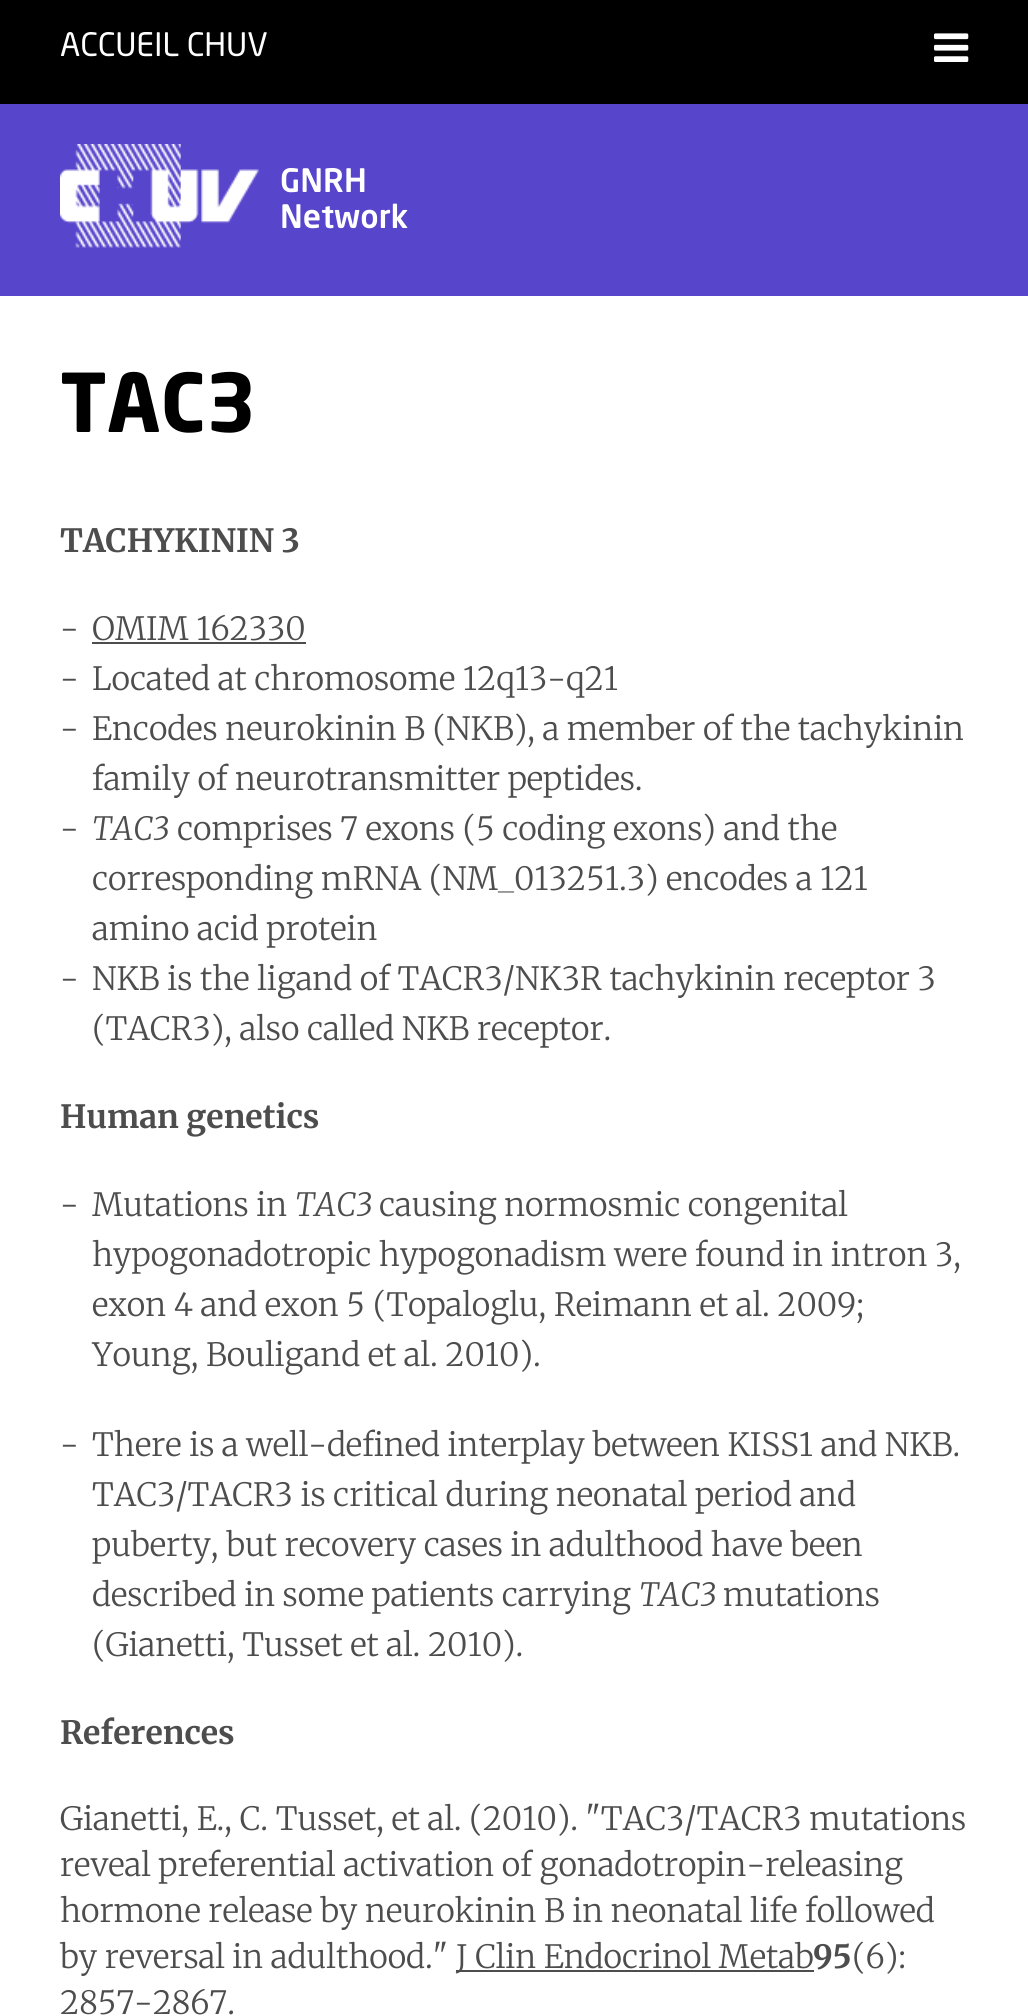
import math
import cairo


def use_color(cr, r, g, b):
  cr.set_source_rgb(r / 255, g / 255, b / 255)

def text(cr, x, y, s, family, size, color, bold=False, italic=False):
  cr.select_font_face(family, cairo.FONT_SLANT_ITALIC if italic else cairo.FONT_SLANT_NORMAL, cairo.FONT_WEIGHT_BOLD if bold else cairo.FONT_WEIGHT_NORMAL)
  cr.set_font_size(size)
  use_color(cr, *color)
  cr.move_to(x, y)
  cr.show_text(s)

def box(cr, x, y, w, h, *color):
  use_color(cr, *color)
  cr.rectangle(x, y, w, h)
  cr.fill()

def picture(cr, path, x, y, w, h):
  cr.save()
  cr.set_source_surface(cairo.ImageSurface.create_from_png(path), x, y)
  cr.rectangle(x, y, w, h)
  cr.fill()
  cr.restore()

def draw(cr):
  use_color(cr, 255, 255, 255)
  cr.paint()
  box(cr, 0, 0, 1028, 104, 0, 0, 0)
  picture(cr, "img_01.png", 934, 33, 35, 29)
  box(cr, 0, 104, 1028, 192, 87, 69, 204)
  picture(cr, "img_02.png", 60, 144, 199, 104)
  box(cr, 92, 642, 214, 2, 77, 77, 77)
  box(cr, 456, 1970, 358, 2, 77, 77, 77)
  text(cr, 60, 56, "ACCUEIL CHUV", "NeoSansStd", 32, (255, 255, 255))
  text(cr, 280, 192, "GNRH", "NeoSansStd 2", 32, (255, 255, 255))
  text(cr, 280, 228, "Network", "NeoSansStd 2", 32, (255, 255, 255))
  text(cr, 60, 432, "TAC3", "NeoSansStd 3", 80, (0, 0, 0))
  text(cr, 60, 552, "TACHYKININ 3", "Merriweather", 32, (77, 77, 77), bold=True)
  text(cr, 60, 640, "-", "Merriweather Light", 32, (77, 77, 77))
  text(cr, 92, 640, "OMIM 162330", "Merriweather Light", 32, (77, 77, 77))
  text(cr, 60, 690, "-", "Merriweather Light", 32, (77, 77, 77))
  text(cr, 92, 690, "Located at chromosome 12q13-q21", "Merriweather Light", 32, (77, 77, 77))
  text(cr, 60, 740, "-", "Merriweather Light", 32, (77, 77, 77))
  text(cr, 92, 740, "Encodes neurokinin B (NKB), a member of the tachykinin", "Merriweather Light", 32, (77, 77, 77))
  text(cr, 92, 790, "family of neurotransmitter peptides.", "Merriweather Light", 32, (77, 77, 77))
  text(cr, 60, 840, "-", "Merriweather Light", 32, (77, 77, 77))
  text(cr, 92, 840, "TAC3", "Merriweather Light", 32, (77, 77, 77), italic=True)
  text(cr, 177, 840, "comprises 7 exons (5 coding exons) and the", "Merriweather Light", 32, (77, 77, 77))
  text(cr, 92, 890, "corresponding mRNA (NM_013251.3) encodes a 121", "Merriweather Light", 32, (77, 77, 77))
  text(cr, 92, 940, "amino acid protein", "Merriweather Light", 32, (77, 77, 77))
  text(cr, 60, 990, "-", "Merriweather Light", 32, (77, 77, 77))
  text(cr, 92, 990, "NKB is the ligand of TACR3/NK3R tachykinin receptor 3", "Merriweather Light", 32, (77, 77, 77))
  text(cr, 92, 1040, "(TACR3), also called NKB receptor.", "Merriweather Light", 32, (77, 77, 77))
  text(cr, 60, 1128, "Human genetics", "Merriweather", 32, (77, 77, 77), bold=True)
  text(cr, 60, 1216, "-", "Merriweather Light", 32, (77, 77, 77))
  text(cr, 92, 1216, "Mutations in", "Merriweather Light", 32, (77, 77, 77))
  text(cr, 295, 1216, "TAC3", "Merriweather Light", 32, (77, 77, 77), italic=True)
  text(cr, 379, 1216, "causing normosmic congenital", "Merriweather Light", 32, (77, 77, 77))
  text(cr, 92, 1266, "hypogonadotropic hypogonadism were found in intron 3,", "Merriweather Light", 32, (77, 77, 77))
  text(cr, 92, 1316, "exon 4 and exon 5 (Topaloglu, Reimann et al. 2009;", "Merriweather Light", 32, (77, 77, 77))
  text(cr, 92, 1366, "Young, Bouligand et al. 2010).", "Merriweather Light", 32, (77, 77, 77))
  text(cr, 60, 1456, "-", "Merriweather Light", 32, (77, 77, 77))
  text(cr, 92, 1456, "There is a well-defined interplay between KISS1 and NKB.", "Merriweather Light", 32, (77, 77, 77))
  text(cr, 92, 1506, "TAC3/TACR3 is critical during neonatal period and", "Merriweather Light", 32, (77, 77, 77))
  text(cr, 92, 1556, "puberty, but recovery cases in adulthood have been", "Merriweather Light", 32, (77, 77, 77))
  text(cr, 92, 1606, "described in some patients carrying", "Merriweather Light", 32, (77, 77, 77))
  text(cr, 639, 1606, "TAC3", "Merriweather Light", 32, (77, 77, 77), italic=True)
  text(cr, 723, 1606, "mutations", "Merriweather Light", 32, (77, 77, 77))
  text(cr, 92, 1656, "(Gianetti, Tusset et al. 2010).", "Merriweather Light", 32, (77, 77, 77))
  text(cr, 60, 1744, "References", "Merriweather", 32, (77, 77, 77), bold=True)
  text(cr, 60, 1830, "Gianetti, E., C. Tusset, et al. (2010). \"TAC3/TACR3 mutations", "Merriweather Light", 32, (77, 77, 77))
  text(cr, 60, 1876, "reveal preferential activation of gonadotropin-releasing", "Merriweather Light", 32, (77, 77, 77))
  text(cr, 60, 1922, "hormone release by neurokinin B in neonatal life followed", "Merriweather Light", 32, (77, 77, 77))
  text(cr, 60, 1968, "by reversal in adulthood.\"", "Merriweather Light", 32, (77, 77, 77))
  text(cr, 456, 1968, "J Clin Endocrinol Metab", "Merriweather Light", 32, (77, 77, 77))
  text(cr, 813, 1968, "95", "Merriweather", 32, (77, 77, 77), bold=True)
  text(cr, 852, 1968, "(6):", "Merriweather Light", 32, (77, 77, 77))
  text(cr, 60, 2014, "2857-2867.", "Merriweather Light", 32, (77, 77, 77))


surface = cairo.ImageSurface(cairo.FORMAT_RGB24, 1028, 2016)
cr = cairo.Context(surface)
options = cairo.FontOptions()
options.set_hint_metrics(cairo.HINT_METRICS_OFF)
options.set_hint_style(cairo.HINT_STYLE_NONE)
cr.set_font_options(options)
cr.set_miter_limit(4)
draw(cr)
surface.write_to_png("out.png")
